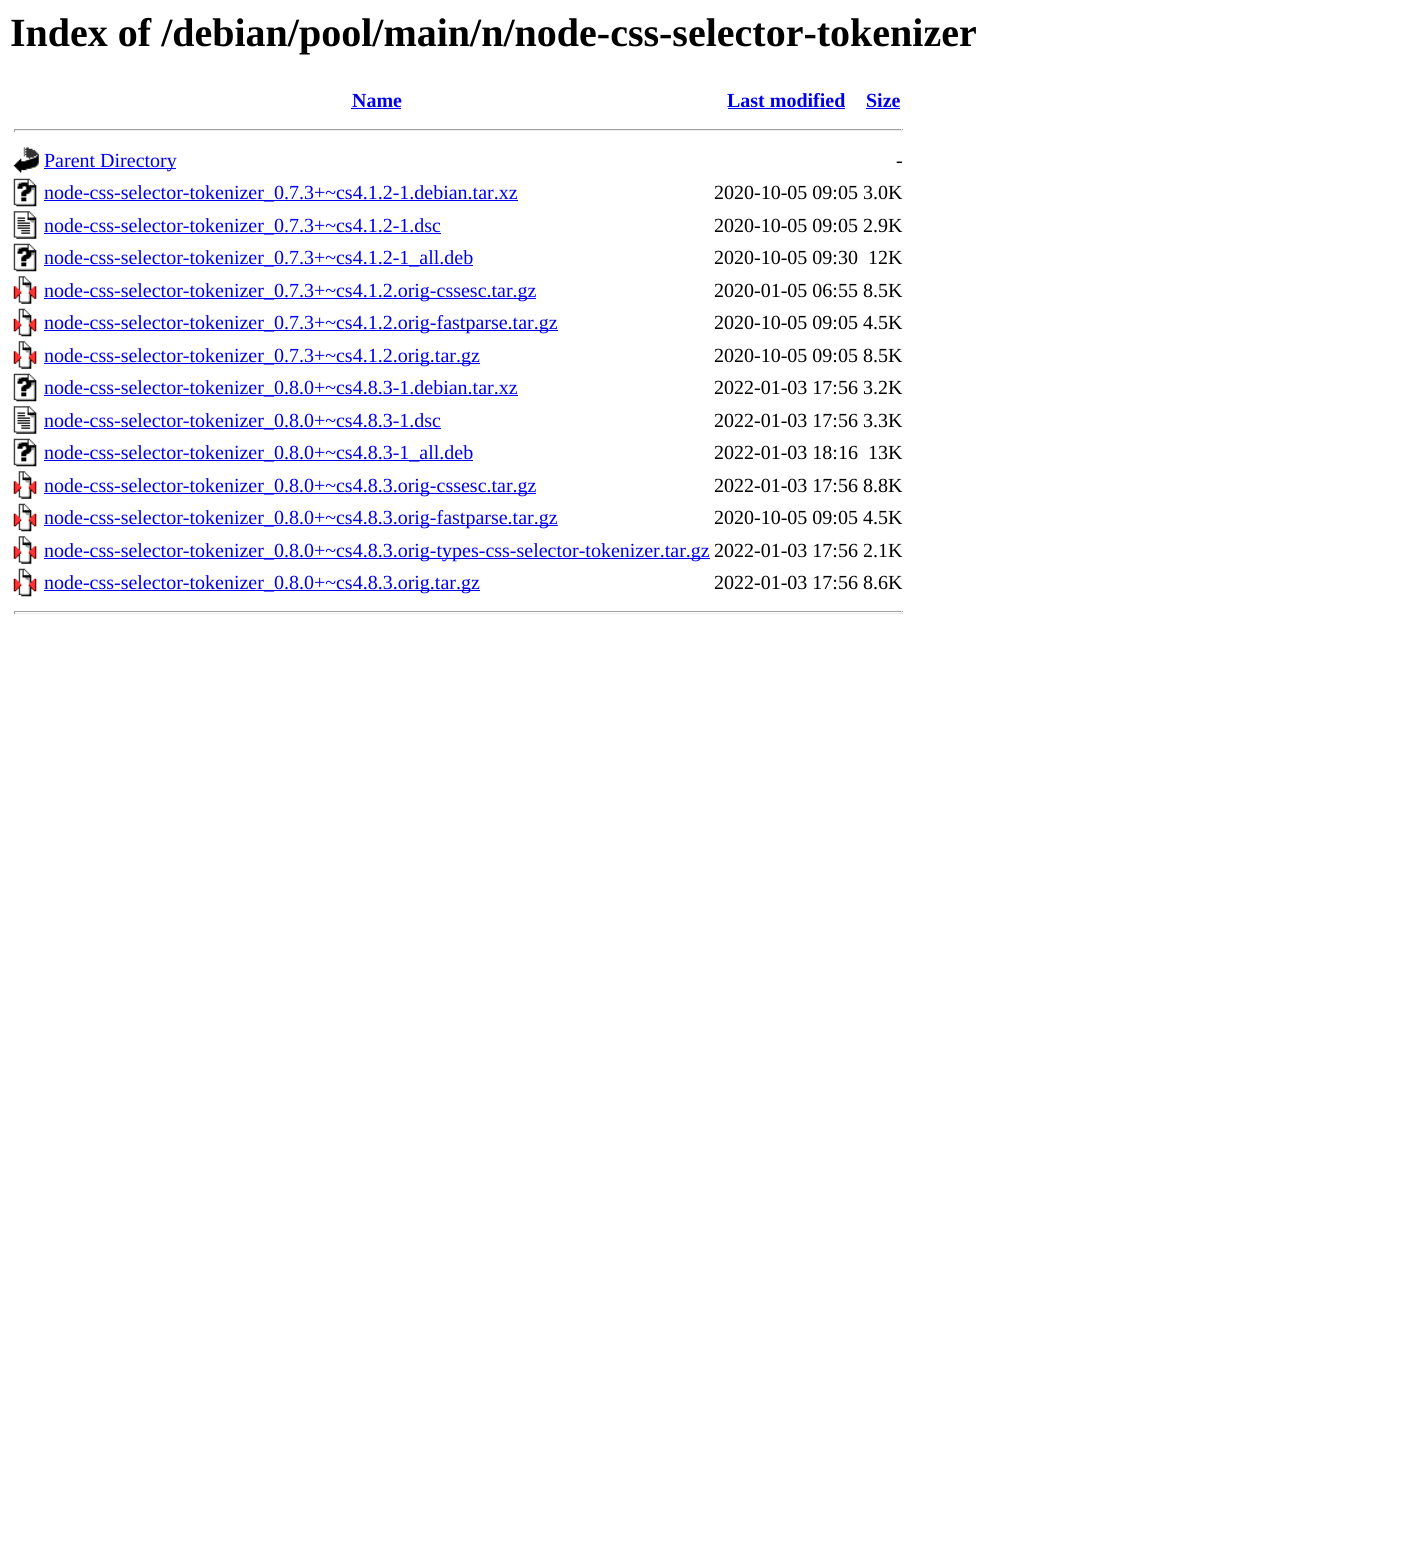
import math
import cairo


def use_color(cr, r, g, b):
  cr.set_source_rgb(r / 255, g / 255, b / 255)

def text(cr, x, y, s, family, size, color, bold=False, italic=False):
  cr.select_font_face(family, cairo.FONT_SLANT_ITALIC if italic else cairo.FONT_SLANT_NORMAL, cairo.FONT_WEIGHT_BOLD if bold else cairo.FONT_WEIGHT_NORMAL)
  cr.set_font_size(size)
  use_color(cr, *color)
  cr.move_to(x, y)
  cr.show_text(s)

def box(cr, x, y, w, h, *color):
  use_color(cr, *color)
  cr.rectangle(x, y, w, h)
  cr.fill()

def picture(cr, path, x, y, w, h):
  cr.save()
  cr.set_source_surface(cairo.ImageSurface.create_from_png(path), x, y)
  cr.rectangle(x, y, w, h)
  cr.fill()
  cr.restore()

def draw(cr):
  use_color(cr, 255, 255, 255)
  cr.paint()
  box(cr, 351, 108, 50, 1, 0, 0, 238)
  box(cr, 728, 108, 117, 1, 0, 0, 238)
  box(cr, 866, 108, 34, 1, 0, 0, 238)
  box(cr, 14, 129, 889, 1, 159, 159, 159)
  box(cr, 901, 129, 1, 3, 238, 238, 238)
  box(cr, 14, 130, 889, 1, 238, 238, 238)
  box(cr, 14, 129, 1, 3, 159, 159, 159)
  picture(cr, "img_01.png", 13, 147, 26, 26)
  box(cr, 44, 168, 132, 1, 0, 0, 238)
  picture(cr, "img_02.png", 13, 178, 24, 29)
  box(cr, 44, 200, 474, 1, 0, 0, 238)
  picture(cr, "img_03.png", 13, 211, 24, 28)
  box(cr, 44, 233, 397, 1, 0, 0, 238)
  picture(cr, "img_02.png", 13, 243, 24, 29)
  box(cr, 44, 265, 429, 1, 0, 0, 238)
  picture(cr, "img_04.png", 13, 276, 24, 28)
  box(cr, 44, 298, 492, 1, 0, 0, 238)
  picture(cr, "img_05.png", 13, 308, 24, 29)
  box(cr, 44, 330, 514, 1, 0, 0, 238)
  picture(cr, "img_06.png", 13, 341, 24, 28)
  box(cr, 44, 363, 436, 1, 0, 0, 238)
  picture(cr, "img_02.png", 13, 373, 24, 29)
  box(cr, 44, 395, 474, 1, 0, 0, 238)
  picture(cr, "img_03.png", 13, 406, 24, 28)
  box(cr, 44, 428, 397, 1, 0, 0, 238)
  picture(cr, "img_02.png", 13, 438, 24, 29)
  box(cr, 44, 460, 429, 1, 0, 0, 238)
  picture(cr, "img_06.png", 13, 471, 24, 28)
  box(cr, 44, 493, 492, 1, 0, 0, 238)
  picture(cr, "img_05.png", 13, 503, 24, 29)
  box(cr, 44, 525, 514, 1, 0, 0, 238)
  picture(cr, "img_06.png", 13, 536, 24, 28)
  box(cr, 44, 558, 666, 1, 0, 0, 238)
  picture(cr, "img_05.png", 13, 568, 24, 29)
  box(cr, 44, 590, 436, 1, 0, 0, 238)
  box(cr, 14, 611, 889, 1, 159, 159, 159)
  box(cr, 901, 611, 1, 3, 238, 238, 238)
  box(cr, 14, 613, 889, 1, 238, 238, 238)
  box(cr, 14, 611, 1, 3, 159, 159, 159)
  text(cr, 10, 46, "Index of /debian/pool/main/n/node-css-selector-tokenizer", "Liberation Serif", 40, (0, 0, 0), bold=True)
  text(cr, 352, 107, "Name", "Liberation Serif", 20, (0, 0, 238), bold=True)
  text(cr, 727, 107, "Last modified", "Liberation Serif", 20, (0, 0, 238), bold=True)
  text(cr, 866, 107, "Size", "Liberation Serif", 20, (0, 0, 238), bold=True)
  text(cr, 44, 167, "Parent Directory", "Liberation Serif", 20, (0, 0, 238))
  text(cr, 896, 167, "-", "Liberation Serif", 20, (0, 0, 0))
  text(cr, 44, 199, "node-css-selector-tokenizer_0.7.3+~cs4.1.2-1.debian.tar.xz", "Liberation Serif", 20, (0, 0, 238))
  text(cr, 714, 199, "2020-10-05 09:05 3.0K", "Liberation Serif", 20, (0, 0, 0))
  text(cr, 44, 232, "node-css-selector-tokenizer_0.7.3+~cs4.1.2-1.dsc", "Liberation Serif", 20, (0, 0, 238))
  text(cr, 714, 232, "2020-10-05 09:05 2.9K", "Liberation Serif", 20, (0, 0, 0))
  text(cr, 44, 264, "node-css-selector-tokenizer_0.7.3+~cs4.1.2-1_all.deb", "Liberation Serif", 20, (0, 0, 238))
  text(cr, 714, 264, "2020-10-05 09:30", "Liberation Serif", 20, (0, 0, 0))
  text(cr, 868, 264, "12K", "Liberation Serif", 20, (0, 0, 0))
  text(cr, 44, 297, "node-css-selector-tokenizer_0.7.3+~cs4.1.2.orig-cssesc.tar.gz", "Liberation Serif", 20, (0, 0, 238))
  text(cr, 714, 297, "2020-01-05 06:55 8.5K", "Liberation Serif", 20, (0, 0, 0))
  text(cr, 44, 329, "node-css-selector-tokenizer_0.7.3+~cs4.1.2.orig-fastparse.tar.gz", "Liberation Serif", 20, (0, 0, 238))
  text(cr, 714, 329, "2020-10-05 09:05 4.5K", "Liberation Serif", 20, (0, 0, 0))
  text(cr, 44, 362, "node-css-selector-tokenizer_0.7.3+~cs4.1.2.orig.tar.gz", "Liberation Serif", 20, (0, 0, 238))
  text(cr, 714, 362, "2020-10-05 09:05 8.5K", "Liberation Serif", 20, (0, 0, 0))
  text(cr, 44, 394, "node-css-selector-tokenizer_0.8.0+~cs4.8.3-1.debian.tar.xz", "Liberation Serif", 20, (0, 0, 238))
  text(cr, 714, 394, "2022-01-03 17:56 3.2K", "Liberation Serif", 20, (0, 0, 0))
  text(cr, 44, 427, "node-css-selector-tokenizer_0.8.0+~cs4.8.3-1.dsc", "Liberation Serif", 20, (0, 0, 238))
  text(cr, 714, 427, "2022-01-03 17:56 3.3K", "Liberation Serif", 20, (0, 0, 0))
  text(cr, 44, 459, "node-css-selector-tokenizer_0.8.0+~cs4.8.3-1_all.deb", "Liberation Serif", 20, (0, 0, 238))
  text(cr, 714, 459, "2022-01-03 18:16", "Liberation Serif", 20, (0, 0, 0))
  text(cr, 868, 459, "13K", "Liberation Serif", 20, (0, 0, 0))
  text(cr, 44, 492, "node-css-selector-tokenizer_0.8.0+~cs4.8.3.orig-cssesc.tar.gz", "Liberation Serif", 20, (0, 0, 238))
  text(cr, 714, 492, "2022-01-03 17:56 8.8K", "Liberation Serif", 20, (0, 0, 0))
  text(cr, 44, 524, "node-css-selector-tokenizer_0.8.0+~cs4.8.3.orig-fastparse.tar.gz", "Liberation Serif", 20, (0, 0, 238))
  text(cr, 714, 524, "2020-10-05 09:05 4.5K", "Liberation Serif", 20, (0, 0, 0))
  text(cr, 44, 557, "node-css-selector-tokenizer_0.8.0+~cs4.8.3.orig-types-css-selector-tokenizer.tar.gz", "Liberation Serif", 20, (0, 0, 238))
  text(cr, 714, 557, "2022-01-03 17:56 2.1K", "Liberation Serif", 20, (0, 0, 0))
  text(cr, 44, 589, "node-css-selector-tokenizer_0.8.0+~cs4.8.3.orig.tar.gz", "Liberation Serif", 20, (0, 0, 238))
  text(cr, 714, 589, "2022-01-03 17:56 8.6K", "Liberation Serif", 20, (0, 0, 0))


surface = cairo.ImageSurface(cairo.FORMAT_RGB24, 1423, 1566)
cr = cairo.Context(surface)
options = cairo.FontOptions()
options.set_hint_metrics(cairo.HINT_METRICS_OFF)
options.set_hint_style(cairo.HINT_STYLE_NONE)
cr.set_font_options(options)
cr.set_miter_limit(4)
draw(cr)
surface.write_to_png("out.png")
